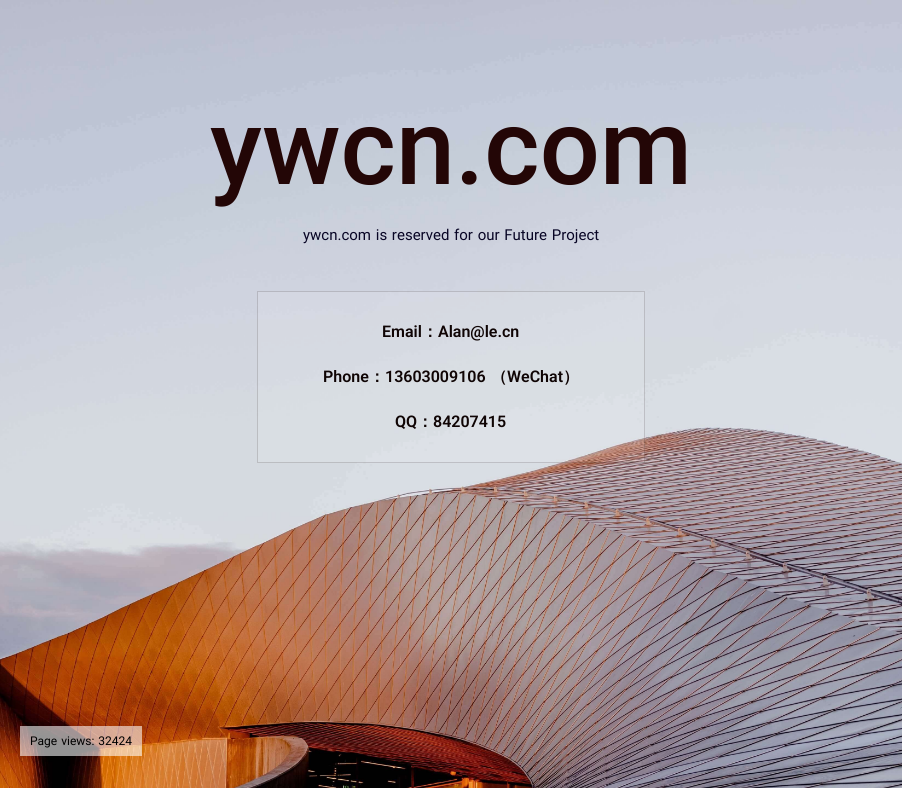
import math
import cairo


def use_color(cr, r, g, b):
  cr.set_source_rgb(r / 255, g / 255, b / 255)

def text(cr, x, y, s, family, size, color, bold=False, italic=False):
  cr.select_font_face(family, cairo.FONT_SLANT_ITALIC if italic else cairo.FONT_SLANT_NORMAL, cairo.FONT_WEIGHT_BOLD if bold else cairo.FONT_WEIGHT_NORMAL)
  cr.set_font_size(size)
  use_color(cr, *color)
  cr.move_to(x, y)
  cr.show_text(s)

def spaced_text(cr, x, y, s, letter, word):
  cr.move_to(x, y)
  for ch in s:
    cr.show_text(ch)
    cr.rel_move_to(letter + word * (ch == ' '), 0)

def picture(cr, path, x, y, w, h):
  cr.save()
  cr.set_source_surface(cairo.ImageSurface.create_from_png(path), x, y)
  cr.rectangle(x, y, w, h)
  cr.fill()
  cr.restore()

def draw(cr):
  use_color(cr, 255, 255, 255)
  cr.paint()
  picture(cr, "img_01.png", 0, 0, 902, 788)
  cr.set_source_rgba(1, 1, 1, 0.1)
  cr.rectangle(257, 291, 388, 172)
  cr.fill()
  cr.rectangle(257.5, 291.5, 387, 171)
  cr.set_source_rgba(0.059, 0.016, 0.016, 0.15)
  cr.set_line_width(1)
  cr.stroke()
  cr.set_source_rgba(1, 1, 1, 0.58)
  cr.rectangle(20, 726, 122, 30)
  cr.fill()
  text(cr, 210, 184, "ywcn.com", "Roboto Medium", 106, (35, 6, 6))
  cr.select_font_face("Roboto")
  cr.set_font_size(15)
  use_color(cr, 8, 5, 37)
  spaced_text(cr, 303, 240, "ywcn.com is reserved for our Future Project", 0, 1)
  text(cr, 382, 337, "Email", "Roboto SemiBold", 16, (15, 4, 4))
  text(cr, 422, 337, "：", "WenQuanYi Zen Hei", 16, (15, 4, 4), bold=True)
  text(cr, 438, 337, "Alan@le.cn", "Roboto SemiBold", 16, (15, 4, 4))
  text(cr, 323, 382, "Phone", "Roboto SemiBold", 16, (15, 4, 4))
  text(cr, 369, 382, "：", "WenQuanYi Zen Hei", 16, (15, 4, 4), bold=True)
  text(cr, 385, 382, "13603009106", "Roboto SemiBold", 16, (15, 4, 4))
  text(cr, 491, 382, "（", "WenQuanYi Zen Hei", 16, (15, 4, 4), bold=True)
  text(cr, 507, 382, "WeChat", "Roboto SemiBold", 16, (15, 4, 4))
  text(cr, 563, 382, "）", "WenQuanYi Zen Hei", 16, (15, 4, 4), bold=True)
  text(cr, 395, 427, "QQ", "Roboto SemiBold", 16, (15, 4, 4))
  text(cr, 417, 427, "：", "WenQuanYi Zen Hei", 16, (15, 4, 4), bold=True)
  text(cr, 433, 427, "84207415", "Roboto SemiBold", 16, (15, 4, 4))
  cr.select_font_face("Roboto")
  cr.set_font_size(12)
  use_color(cr, 0, 0, 0)
  spaced_text(cr, 30, 745, "Page views: 32424", 0, 1)


surface = cairo.ImageSurface(cairo.FORMAT_RGB24, 902, 788)
cr = cairo.Context(surface)
options = cairo.FontOptions()
options.set_hint_metrics(cairo.HINT_METRICS_OFF)
options.set_hint_style(cairo.HINT_STYLE_NONE)
cr.set_font_options(options)
cr.set_miter_limit(4)
draw(cr)
surface.write_to_png("out.png")
